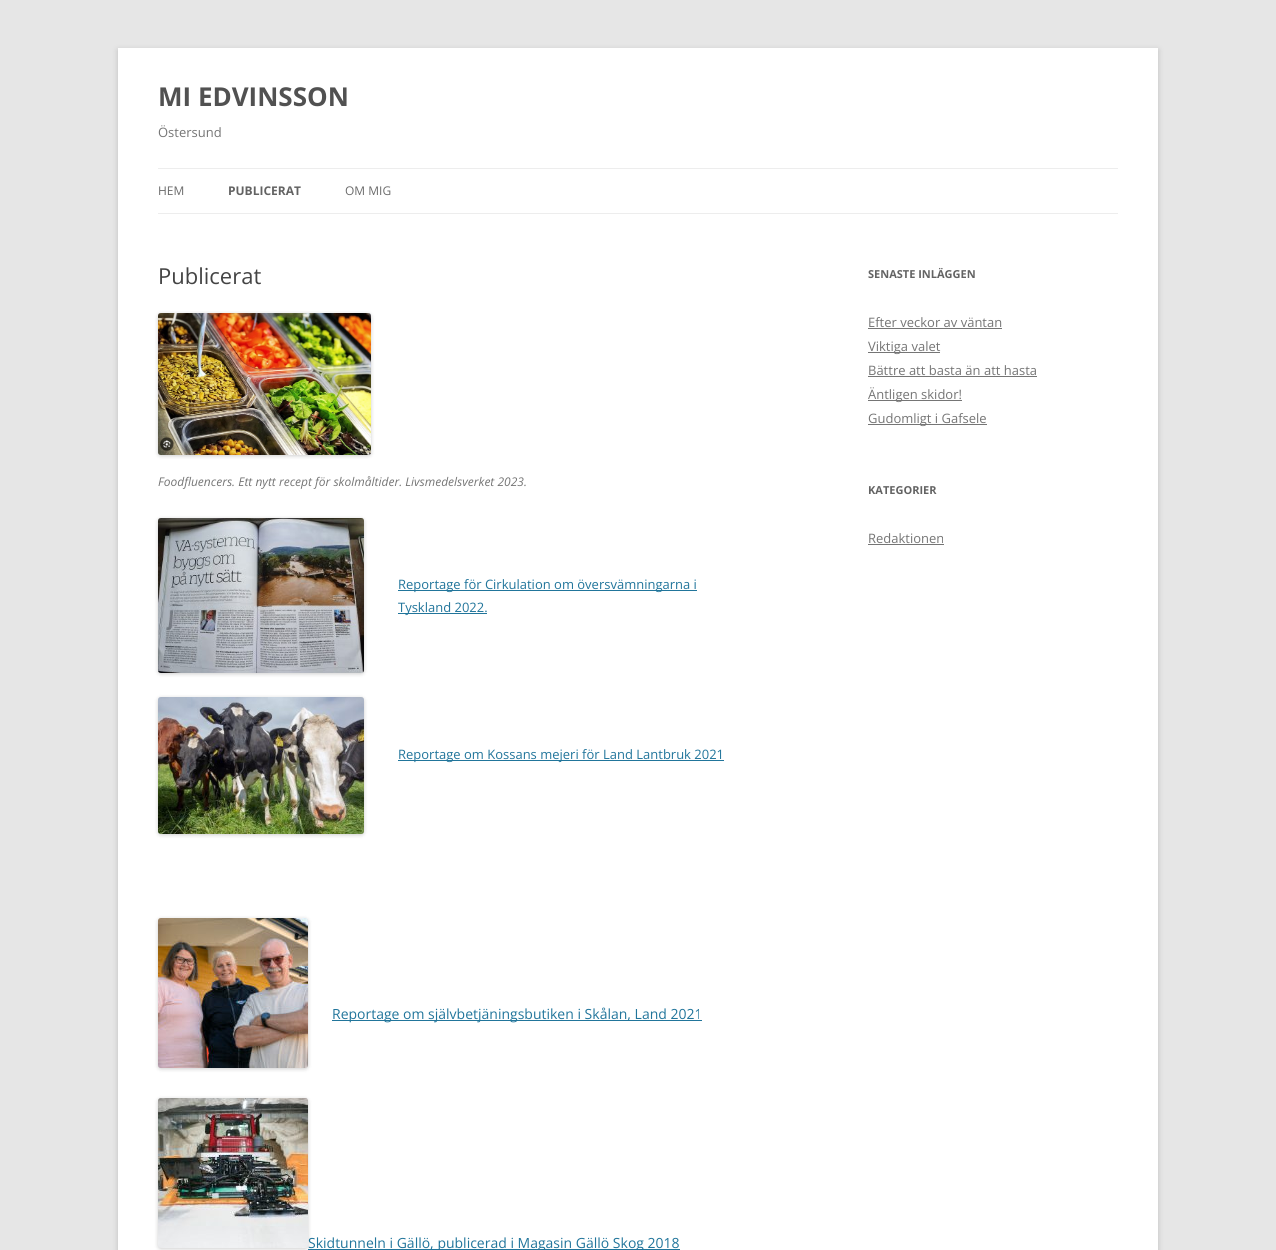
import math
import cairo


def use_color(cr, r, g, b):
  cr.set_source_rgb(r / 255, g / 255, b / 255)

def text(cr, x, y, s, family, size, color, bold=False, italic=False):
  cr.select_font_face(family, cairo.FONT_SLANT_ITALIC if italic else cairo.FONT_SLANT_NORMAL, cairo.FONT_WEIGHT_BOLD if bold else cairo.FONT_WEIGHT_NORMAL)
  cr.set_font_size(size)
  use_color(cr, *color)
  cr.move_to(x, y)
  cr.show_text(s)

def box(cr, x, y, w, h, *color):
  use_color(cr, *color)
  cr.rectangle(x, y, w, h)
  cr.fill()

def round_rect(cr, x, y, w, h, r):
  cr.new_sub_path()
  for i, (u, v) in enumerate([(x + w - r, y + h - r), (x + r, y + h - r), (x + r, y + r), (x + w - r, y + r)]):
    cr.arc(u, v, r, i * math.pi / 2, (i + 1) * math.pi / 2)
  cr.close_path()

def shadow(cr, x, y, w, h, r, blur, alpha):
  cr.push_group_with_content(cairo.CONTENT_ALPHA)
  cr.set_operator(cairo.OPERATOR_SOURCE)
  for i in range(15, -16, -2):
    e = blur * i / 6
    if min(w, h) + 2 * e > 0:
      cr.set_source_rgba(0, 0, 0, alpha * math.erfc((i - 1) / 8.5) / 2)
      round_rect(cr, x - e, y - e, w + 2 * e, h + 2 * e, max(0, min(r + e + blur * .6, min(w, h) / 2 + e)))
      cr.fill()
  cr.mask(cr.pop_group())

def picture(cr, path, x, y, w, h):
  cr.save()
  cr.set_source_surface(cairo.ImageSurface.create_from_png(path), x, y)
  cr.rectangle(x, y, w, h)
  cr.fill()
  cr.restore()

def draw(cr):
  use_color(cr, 230, 230, 230)
  cr.paint()
  use_color(cr, 100, 100, 100)
  shadow(cr, 118, 50, 1040, 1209, 0, 3, 0.3)
  box(cr, 118, 48, 1040, 1202, 255, 255, 255)
  box(cr, 158, 168, 960, 1, 237, 237, 237)
  box(cr, 158, 213, 960, 1, 237, 237, 237)
  use_color(cr, 0, 0, 0)
  shadow(cr, 158, 314, 213, 142, 3, 2, 0.2)
  picture(cr, "img_01.png", 158, 313, 213, 142)
  shadow(cr, 158, 519, 206, 155, 3, 2, 0.2)
  picture(cr, "img_02.png", 158, 518, 206, 155)
  box(cr, 398, 590, 299, 1, 33, 117, 155)
  box(cr, 398, 613, 89, 1, 33, 117, 155)
  use_color(cr, 0, 0, 0)
  shadow(cr, 158, 698, 206, 137, 3, 2, 0.2)
  picture(cr, "img_03.png", 158, 697, 206, 137)
  box(cr, 398, 760, 326, 1, 33, 117, 155)
  use_color(cr, 0, 0, 0)
  shadow(cr, 158, 919, 150, 150, 3, 2, 0.2)
  picture(cr, "img_04.png", 158, 918, 150, 150)
  box(cr, 332, 1020, 370, 1, 33, 117, 155)
  use_color(cr, 0, 0, 0)
  shadow(cr, 158, 1099, 150, 150, 3, 2, 0.2)
  picture(cr, "img_05.png", 158, 1098, 150, 150)
  box(cr, 308, 1249, 372, 1, 33, 117, 155)
  box(cr, 868, 328, 134, 1, 117, 117, 117)
  box(cr, 868, 352, 72, 1, 117, 117, 117)
  box(cr, 868, 376, 169, 1, 117, 117, 117)
  box(cr, 868, 400, 94, 1, 117, 117, 117)
  box(cr, 868, 424, 119, 1, 117, 117, 117)
  box(cr, 868, 544, 76, 1, 117, 117, 117)
  text(cr, 158, 106, "MI EDVINSSON", "Open Sans", 26, (81, 81, 81), bold=True)
  text(cr, 158, 137, "Östersund", "Open Sans", 13, (117, 117, 117))
  text(cr, 158, 195, "HEM", "Open Sans", 12, (106, 106, 106))
  text(cr, 228, 195, "PUBLICERAT", "Open Sans", 12, (99, 99, 99), bold=True)
  text(cr, 345, 195, "OM MIG", "Open Sans", 12, (106, 106, 106))
  text(cr, 158, 284, "Publicerat", "Open Sans", 22, (68, 68, 68))
  text(cr, 158, 486, "Foodfluencers. Ett nytt recept för skolmåltider. Livsmedelsverket 2023.", "Open Sans", 12, (117, 117, 117), italic=True)
  text(cr, 398, 589, "Reportage för Cirkulation om översvämningarna i", "Open Sans", 13, (33, 117, 155))
  text(cr, 398, 612, "Tyskland 2022.", "Open Sans", 13, (33, 117, 155))
  text(cr, 398, 759, "Reportage om Kossans mejeri för Land Lantbruk 2021", "Open Sans", 13, (33, 117, 155))
  text(cr, 332, 1019, "Reportage om självbetjäningsbutiken i Skålan, Land 2021", "Open Sans", 14, (33, 117, 155))
  text(cr, 308, 1248, "Skidtunneln i Gällö, publicerad i Magasin Gällö Skog 2018", "Open Sans", 14, (33, 117, 155))
  text(cr, 868, 278, "SENASTE INLÄGGEN", "Open Sans", 11, (99, 99, 99), bold=True)
  text(cr, 868, 327, "Efter veckor av väntan", "Open Sans", 13, (117, 117, 117))
  text(cr, 868, 351, "Viktiga valet", "Open Sans", 13, (117, 117, 117))
  text(cr, 868, 375, "Bättre att basta än att hasta", "Open Sans", 13, (117, 117, 117))
  text(cr, 868, 399, "Äntligen skidor!", "Open Sans", 13, (117, 117, 117))
  text(cr, 868, 423, "Gudomligt i Gafsele", "Open Sans", 13, (117, 117, 117))
  text(cr, 868, 494, "KATEGORIER", "Open Sans", 11, (99, 99, 99), bold=True)
  text(cr, 868, 543, "Redaktionen", "Open Sans", 13, (117, 117, 117))


surface = cairo.ImageSurface(cairo.FORMAT_RGB24, 1276, 1250)
cr = cairo.Context(surface)
options = cairo.FontOptions()
options.set_hint_metrics(cairo.HINT_METRICS_OFF)
options.set_hint_style(cairo.HINT_STYLE_NONE)
cr.set_font_options(options)
cr.set_miter_limit(4)
draw(cr)
surface.write_to_png("out.png")
